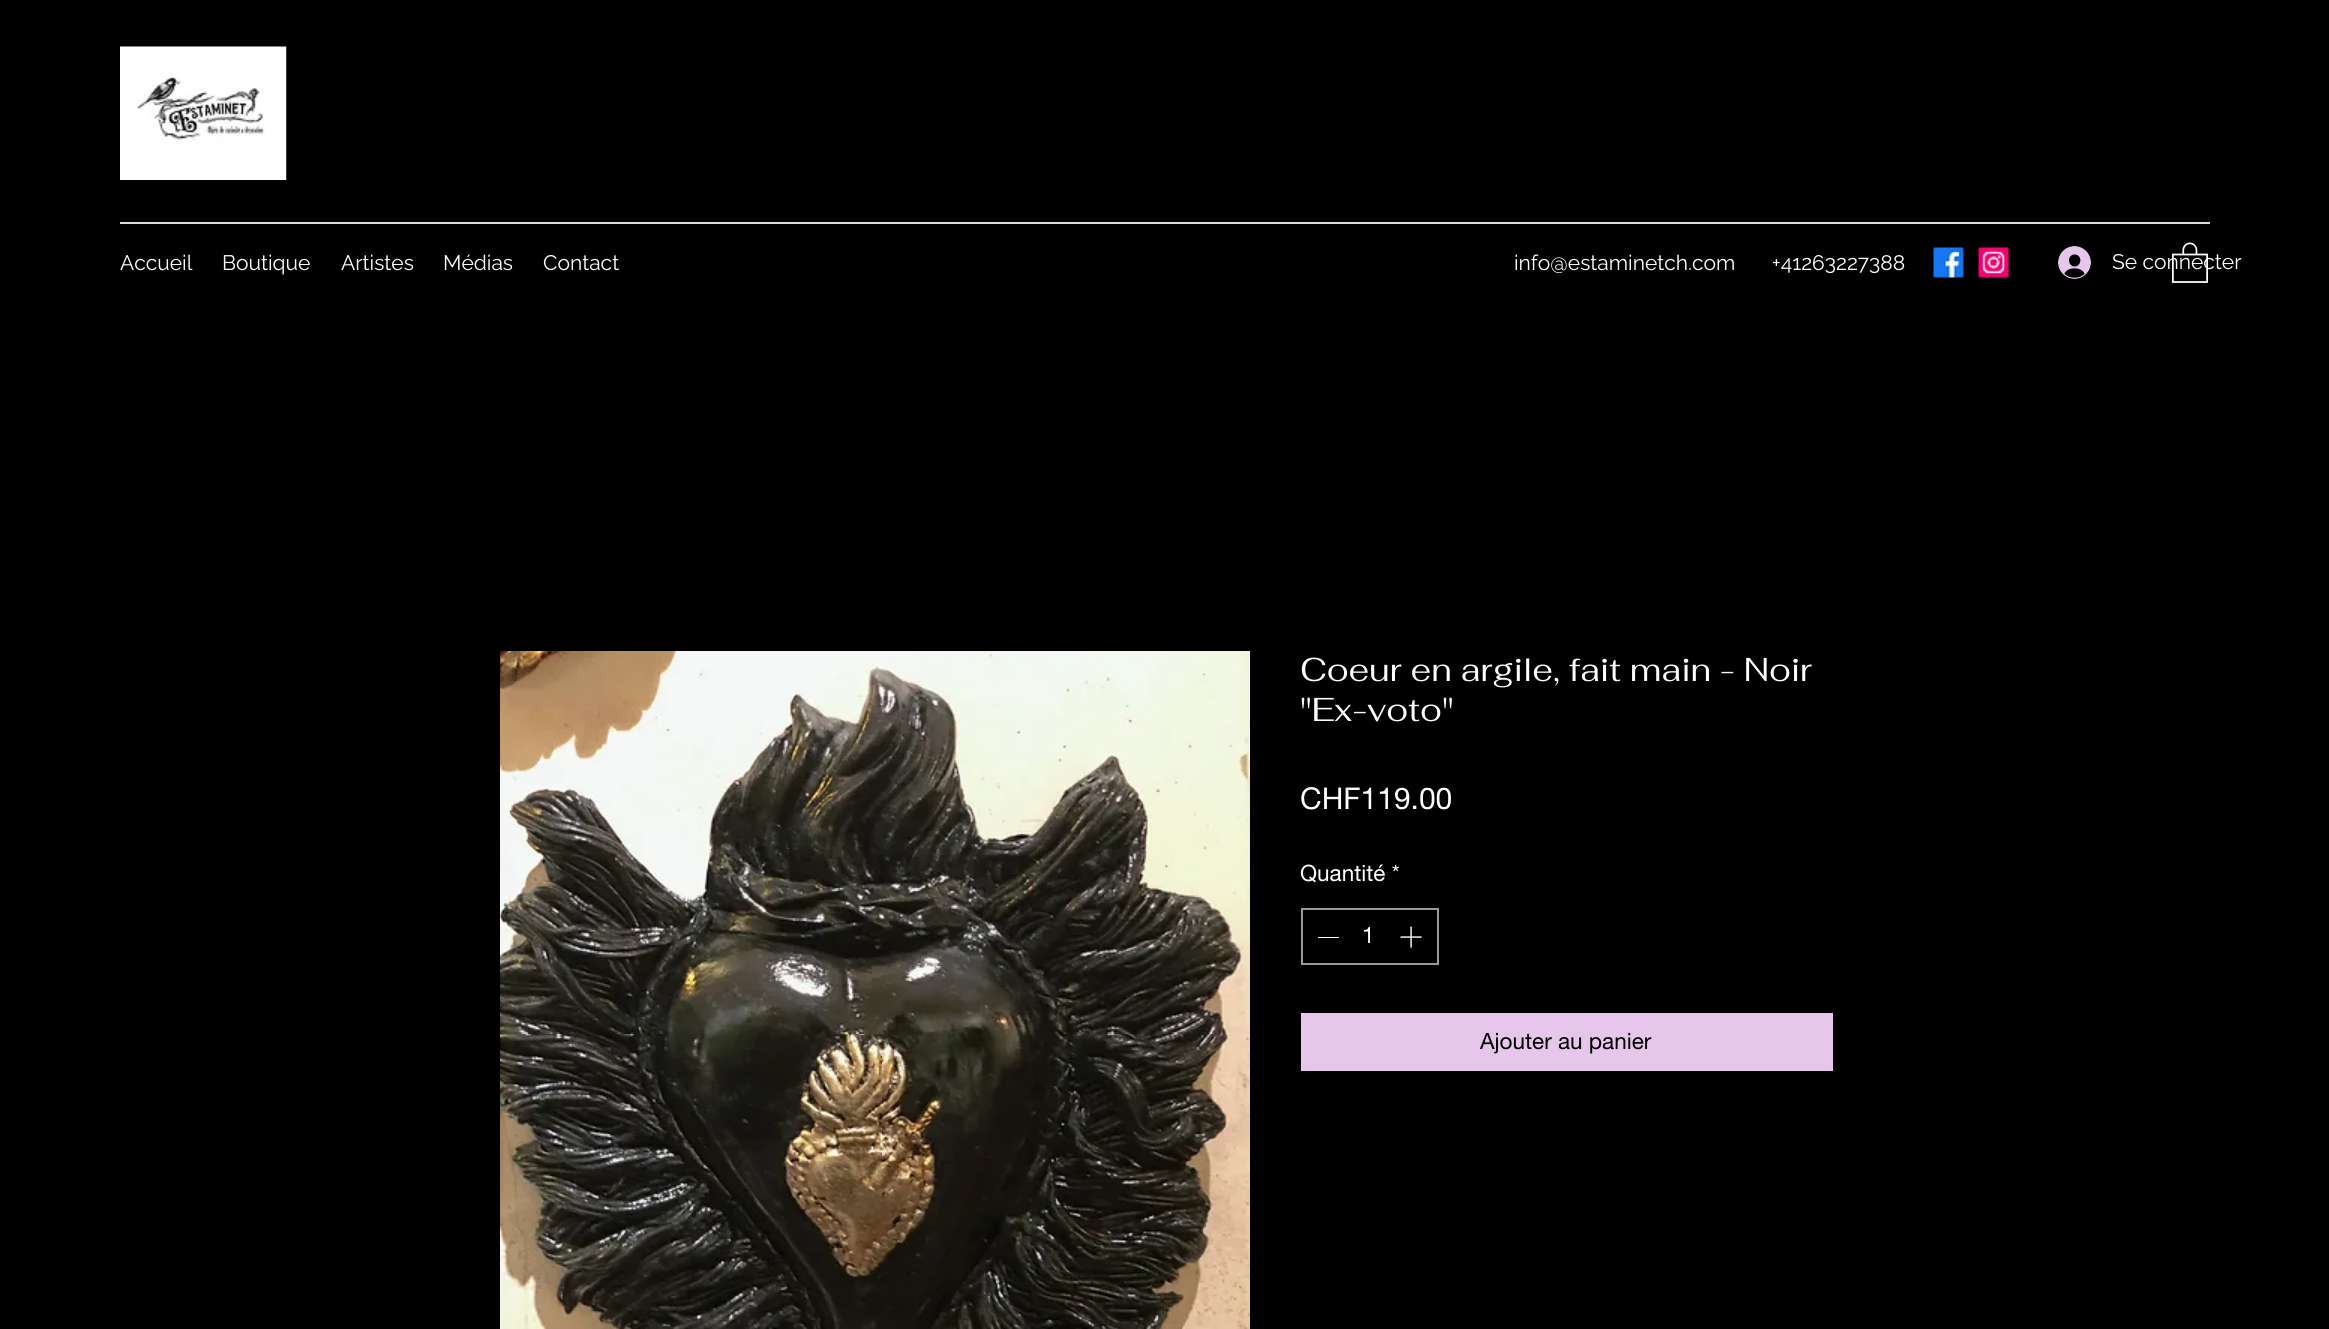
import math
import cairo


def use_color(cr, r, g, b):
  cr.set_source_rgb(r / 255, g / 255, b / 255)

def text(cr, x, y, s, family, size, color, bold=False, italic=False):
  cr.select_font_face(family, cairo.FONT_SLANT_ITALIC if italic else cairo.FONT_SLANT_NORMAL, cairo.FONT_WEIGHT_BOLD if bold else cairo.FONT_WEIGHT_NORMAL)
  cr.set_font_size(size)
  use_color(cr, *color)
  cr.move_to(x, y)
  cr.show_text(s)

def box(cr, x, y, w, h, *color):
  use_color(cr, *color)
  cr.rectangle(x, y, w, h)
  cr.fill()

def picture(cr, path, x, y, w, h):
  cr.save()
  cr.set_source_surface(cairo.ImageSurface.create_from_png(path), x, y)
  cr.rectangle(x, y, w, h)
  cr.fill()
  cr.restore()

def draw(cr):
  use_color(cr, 0, 0, 0)
  cr.paint()
  picture(cr, "img_01.png", 120, 46, 167, 134)
  box(cr, 120, 222, 2090, 2, 217, 217, 217)
  picture(cr, "img_02.png", 1933, 247, 31, 31)
  picture(cr, "img_03.png", 1978, 247, 31, 31)
  picture(cr, "img_05.png", 2058, 246, 33, 33)
  picture(cr, "img_06.png", 500, 651, 750, 678)
  cr.rectangle(1302, 909, 136, 55)
  use_color(cr, 153, 153, 153)
  cr.stroke()
  box(cr, 1318, 937, 21, 1, 255, 255, 255)
  picture(cr, "img_07.png", 1400, 926, 22, 22)
  box(cr, 1301, 1013, 532, 58, 230, 199, 235)
  text(cr, 120, 270, "Accueil", "Raleway", 21, (255, 255, 255))
  text(cr, 222, 270, "Boutique", "Raleway", 21, (255, 255, 255))
  text(cr, 341, 270, "Artistes", "Raleway", 21, (255, 255, 255))
  text(cr, 443, 270, "Médias", "Raleway", 21, (255, 255, 255))
  text(cr, 543, 270, "Contact", "Raleway", 21, (255, 255, 255))
  text(cr, 1514, 270, "info@estaminetch.com", "Raleway", 21, (255, 255, 255))
  text(cr, 1772, 270, "+41263227388", "Raleway", 21, (255, 255, 255))
  text(cr, 2112, 269, "Se connecter", "Raleway", 21, (255, 255, 255))
  picture(cr, "img_04.png", 2172, 242, 36, 41)
  text(cr, 1300, 681, "Coeur en argile, fait main - Noir", "Fahkwang", 33, (255, 255, 255))
  text(cr, 1300, 721, "\"Ex-voto\"", "Fahkwang", 33, (255, 255, 255))
  text(cr, 1300, 809, "CHF119.00", "helvetica neue", 30, (255, 255, 255))
  text(cr, 1300, 881, "Quantité *", "helvetica neue", 22.5, (255, 255, 255))
  text(cr, 1362, 943, "1", "helvetica neue", 22.5, (255, 255, 255))
  text(cr, 1480, 1049, "Ajouter au panier", "helvetica neue", 22.5, (0, 0, 0))


surface = cairo.ImageSurface(cairo.FORMAT_RGB24, 2329, 1329)
cr = cairo.Context(surface)
options = cairo.FontOptions()
options.set_hint_metrics(cairo.HINT_METRICS_OFF)
options.set_hint_style(cairo.HINT_STYLE_NONE)
cr.set_font_options(options)
cr.set_miter_limit(4)
draw(cr)
surface.write_to_png("out.png")
